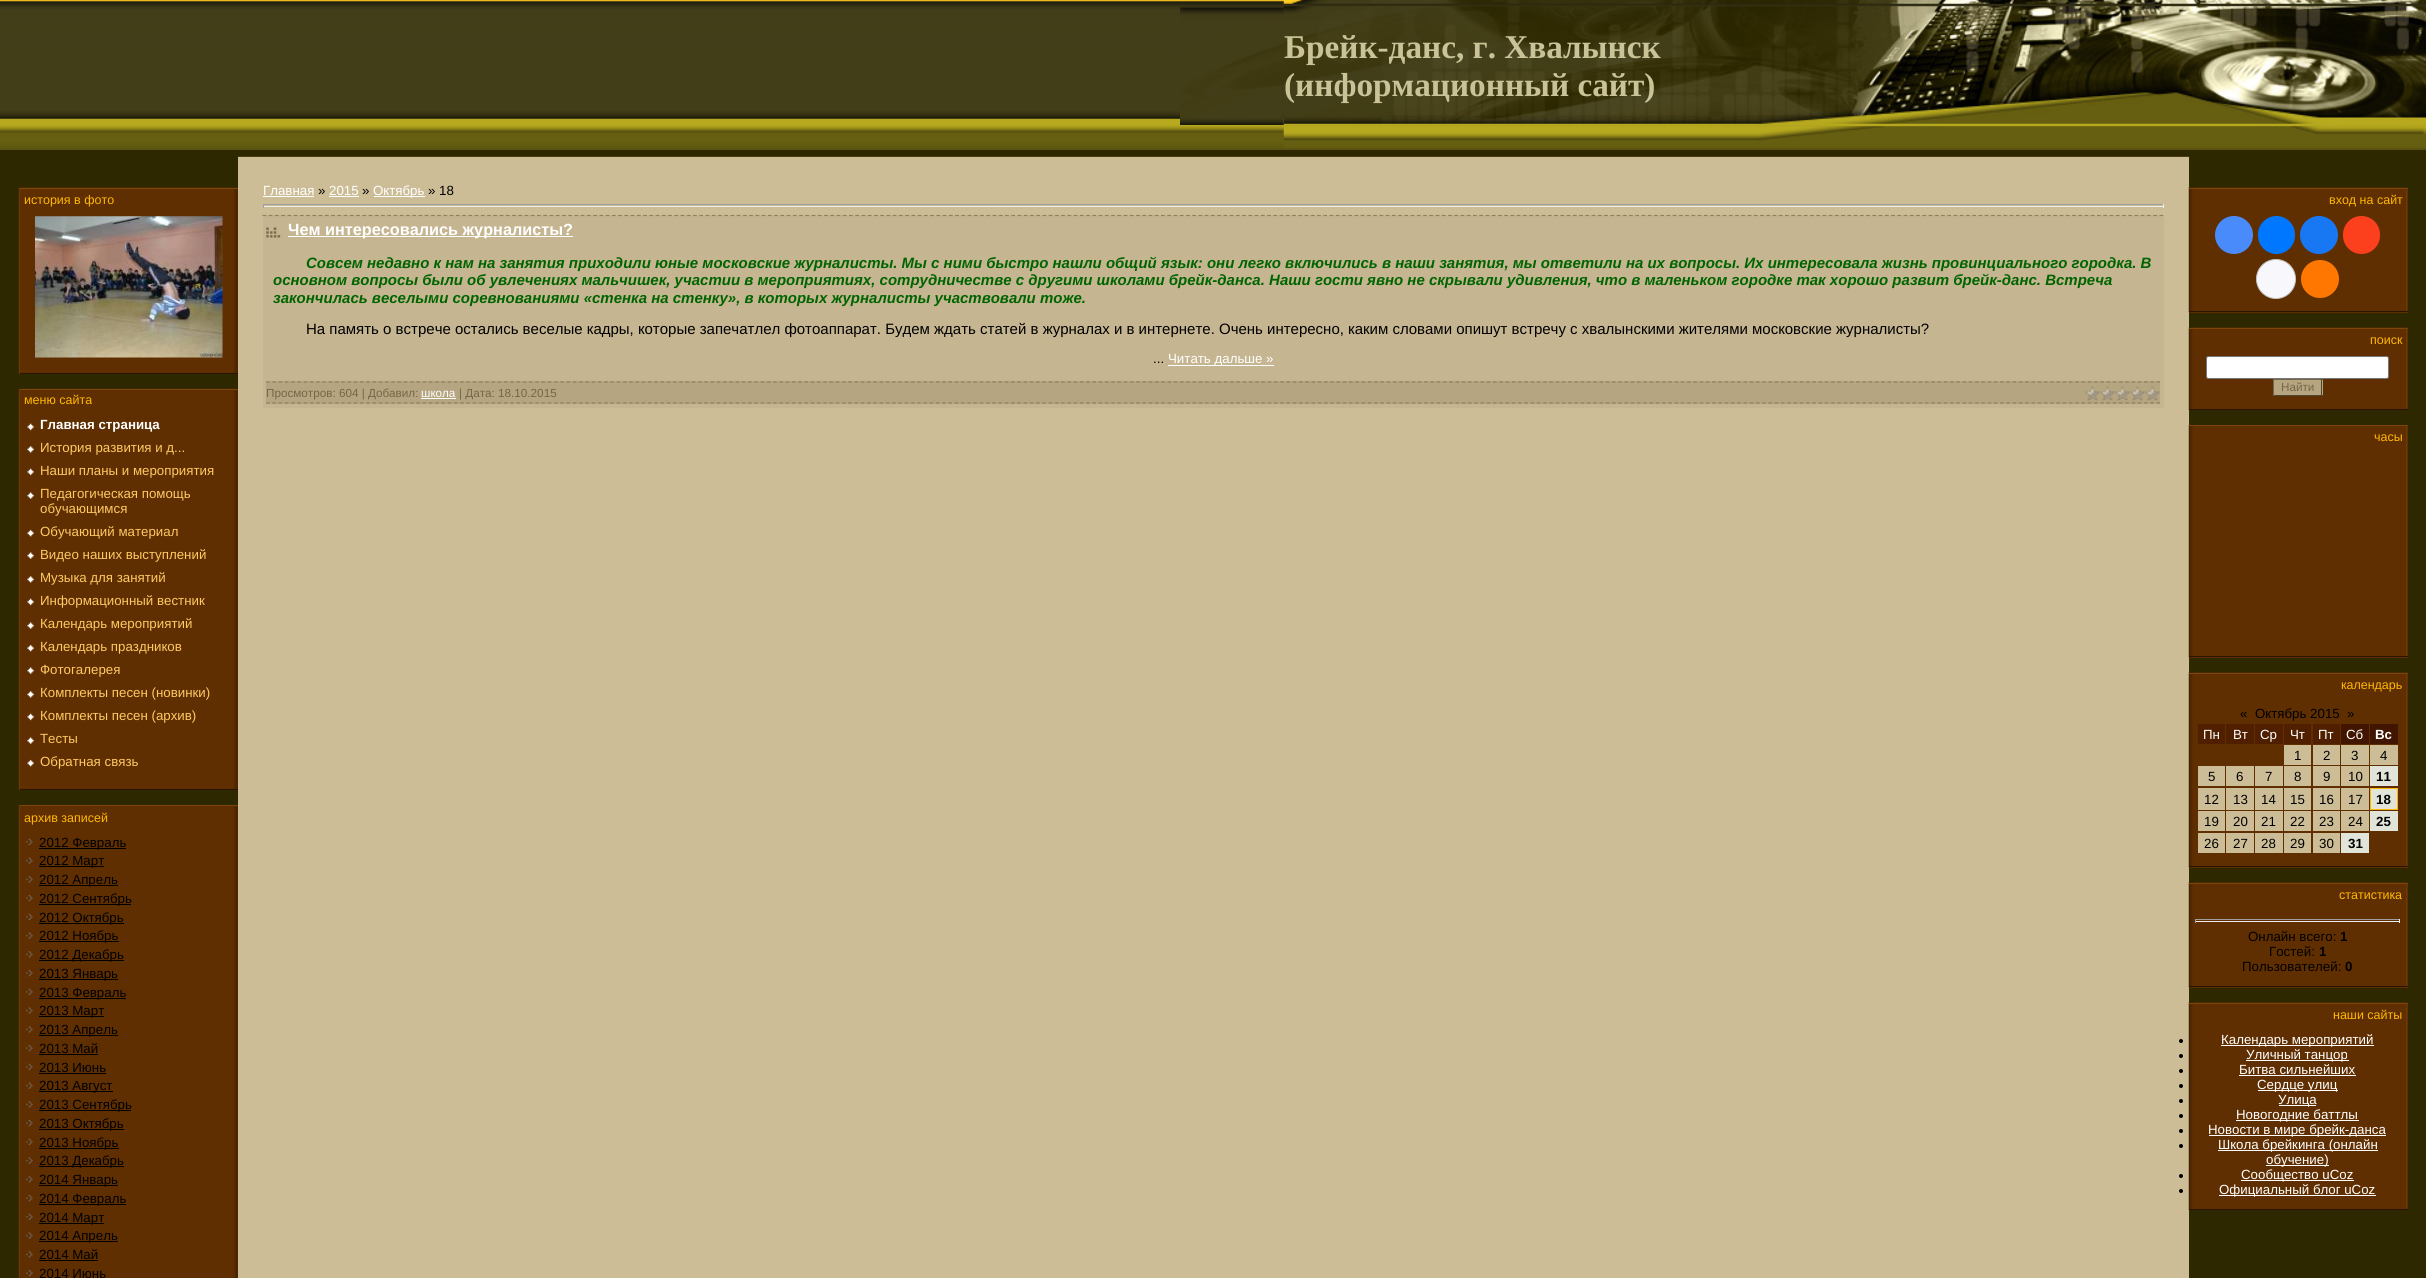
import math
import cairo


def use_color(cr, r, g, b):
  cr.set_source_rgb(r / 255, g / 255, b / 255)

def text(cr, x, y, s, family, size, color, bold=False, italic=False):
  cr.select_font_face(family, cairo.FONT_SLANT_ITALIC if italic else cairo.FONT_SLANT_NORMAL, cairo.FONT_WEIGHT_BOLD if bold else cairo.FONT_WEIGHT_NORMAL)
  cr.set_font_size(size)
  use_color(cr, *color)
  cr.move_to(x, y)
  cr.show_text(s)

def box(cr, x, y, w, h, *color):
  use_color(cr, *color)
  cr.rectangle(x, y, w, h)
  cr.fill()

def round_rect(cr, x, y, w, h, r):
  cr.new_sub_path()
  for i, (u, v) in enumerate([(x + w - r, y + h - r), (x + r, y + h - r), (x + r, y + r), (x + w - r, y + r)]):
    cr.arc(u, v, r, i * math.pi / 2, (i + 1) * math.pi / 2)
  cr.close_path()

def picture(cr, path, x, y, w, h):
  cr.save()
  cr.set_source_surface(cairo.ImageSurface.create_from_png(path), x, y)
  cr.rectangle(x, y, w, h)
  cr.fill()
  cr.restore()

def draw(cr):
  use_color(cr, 45, 40, 0)
  cr.paint()
  picture(cr, "img_01.png", 0, 0, 2426, 150)
  picture(cr, "img_02.png", 1283, 0, 492, 4)
  picture(cr, "img_03.png", 1775, 0, 651, 4)
  picture(cr, "img_04.png", 1180, 7, 104, 118)
  picture(cr, "img_05.png", 1283, 6, 492, 118)
  picture(cr, "img_06.png", 1775, 6, 651, 118)
  picture(cr, "img_07.png", 1283, 126, 1143, 22)
  box(cr, 237, 189, 1, 184, 96, 47, 1)
  picture(cr, "img_08.png", 18, 187, 220, 187)
  box(cr, 19, 188, 219, 1, 126, 69, 8)
  box(cr, 19, 373, 219, 1, 40, 20, 0)
  box(cr, 19, 188, 1, 186, 111, 58, 5)
  picture(cr, "img_09.png", 35, 216, 188, 142)
  box(cr, 237, 390, 1, 399, 96, 47, 1)
  picture(cr, "img_10.png", 18, 388, 220, 402)
  box(cr, 19, 389, 219, 1, 126, 69, 8)
  box(cr, 19, 789, 219, 1, 40, 20, 0)
  box(cr, 19, 389, 1, 401, 111, 58, 5)
  picture(cr, "img_11.png", 27, 423, 7, 8)
  picture(cr, "img_12.png", 27, 446, 7, 7)
  picture(cr, "img_11.png", 27, 468, 7, 8)
  picture(cr, "img_13.png", 27, 492, 7, 7)
  picture(cr, "img_14.png", 27, 529, 7, 8)
  picture(cr, "img_15.png", 27, 552, 7, 7)
  picture(cr, "img_12.png", 27, 576, 7, 7)
  picture(cr, "img_11.png", 27, 598, 7, 8)
  picture(cr, "img_15.png", 27, 622, 7, 7)
  picture(cr, "img_14.png", 27, 644, 7, 8)
  picture(cr, "img_15.png", 27, 667, 7, 7)
  picture(cr, "img_12.png", 27, 691, 7, 7)
  picture(cr, "img_11.png", 27, 713, 7, 8)
  picture(cr, "img_15.png", 27, 737, 7, 7)
  picture(cr, "img_14.png", 27, 759, 7, 8)
  box(cr, 237, 806, 1, 472, 96, 47, 1)
  picture(cr, "img_16.png", 18, 805, 220, 473)
  box(cr, 19, 805, 219, 1, 126, 69, 8)
  box(cr, 19, 805, 1, 473, 111, 58, 5)
  picture(cr, "img_17.png", 26, 838, 7, 7)
  box(cr, 39, 848, 87, 1, 0, 0, 0)
  picture(cr, "img_18.png", 26, 857, 7, 7)
  box(cr, 39, 866, 65, 1, 0, 0, 0)
  picture(cr, "img_19.png", 26, 876, 7, 7)
  box(cr, 39, 885, 79, 1, 0, 0, 0)
  picture(cr, "img_20.png", 26, 895, 7, 7)
  box(cr, 39, 904, 92, 1, 0, 0, 0)
  picture(cr, "img_17.png", 26, 913, 7, 7)
  box(cr, 39, 923, 85, 1, 0, 0, 0)
  picture(cr, "img_18.png", 26, 932, 7, 7)
  box(cr, 39, 941, 80, 1, 0, 0, 0)
  picture(cr, "img_19.png", 26, 951, 7, 7)
  box(cr, 39, 960, 85, 1, 0, 0, 0)
  picture(cr, "img_20.png", 26, 970, 7, 7)
  box(cr, 39, 979, 79, 1, 0, 0, 0)
  picture(cr, "img_17.png", 26, 988, 7, 7)
  box(cr, 39, 998, 87, 1, 0, 0, 0)
  picture(cr, "img_18.png", 26, 1007, 7, 7)
  box(cr, 39, 1016, 65, 1, 0, 0, 0)
  picture(cr, "img_19.png", 26, 1026, 7, 7)
  box(cr, 39, 1035, 79, 1, 0, 0, 0)
  picture(cr, "img_20.png", 26, 1045, 7, 7)
  box(cr, 39, 1054, 59, 1, 0, 0, 0)
  picture(cr, "img_17.png", 26, 1063, 7, 7)
  box(cr, 39, 1073, 67, 1, 0, 0, 0)
  picture(cr, "img_18.png", 26, 1082, 7, 7)
  box(cr, 39, 1091, 74, 1, 0, 0, 0)
  picture(cr, "img_19.png", 26, 1101, 7, 7)
  box(cr, 39, 1110, 92, 1, 0, 0, 0)
  picture(cr, "img_20.png", 26, 1120, 7, 7)
  box(cr, 39, 1129, 85, 1, 0, 0, 0)
  picture(cr, "img_17.png", 26, 1138, 7, 7)
  box(cr, 39, 1148, 80, 1, 0, 0, 0)
  picture(cr, "img_18.png", 26, 1157, 7, 7)
  box(cr, 39, 1166, 85, 1, 0, 0, 0)
  picture(cr, "img_19.png", 26, 1176, 7, 7)
  box(cr, 39, 1185, 79, 1, 0, 0, 0)
  picture(cr, "img_20.png", 26, 1195, 7, 7)
  box(cr, 39, 1204, 87, 1, 0, 0, 0)
  picture(cr, "img_17.png", 26, 1213, 7, 7)
  box(cr, 39, 1223, 65, 1, 0, 0, 0)
  picture(cr, "img_18.png", 26, 1232, 7, 7)
  box(cr, 39, 1241, 79, 1, 0, 0, 0)
  picture(cr, "img_19.png", 26, 1251, 7, 7)
  box(cr, 39, 1260, 59, 1, 0, 0, 0)
  picture(cr, "img_20.png", 26, 1270, 7, 7)
  box(cr, 238, 157, 1951, 1121, 205, 189, 151)
  box(cr, 238, 156, 1951, 1, 68, 63, 12)
  box(cr, 263, 196, 51, 1, 255, 255, 255)
  box(cr, 329, 196, 30, 1, 255, 255, 255)
  box(cr, 374, 196, 51, 1, 255, 255, 255)
  box(cr, 263, 204, 1901, 1, 159, 159, 159)
  box(cr, 2163, 204, 1, 4, 238, 238, 238)
  box(cr, 263, 206, 1901, 1, 238, 238, 238)
  box(cr, 263, 204, 1, 4, 159, 159, 159)
  box(cr, 263, 215, 1901, 193, 198, 181, 145)
  cr.new_path()
  cr.move_to(262.5, 215.5)
  cr.line_to(2164, 215.5)
  use_color(cr, 144, 128, 94)
  cr.set_line_width(1.2)
  cr.set_dash([3.75, 2.49])
  cr.stroke()
  picture(cr, "img_21.png", 266, 227, 15, 11)
  box(cr, 288, 236, 285, 1, 255, 255, 255)
  box(cr, 1168, 365, 106, 1, 255, 255, 255)
  box(cr, 266, 381, 1894, 23, 182, 165, 129)
  cr.new_path()
  cr.move_to(266, 382)
  cr.line_to(2160, 382)
  use_color(cr, 144, 128, 94)
  cr.set_dash([3.75, 2.51])
  cr.stroke()
  cr.new_path()
  cr.move_to(266, 403)
  cr.line_to(2160, 403)
  cr.stroke()
  box(cr, 421, 398, 35, 1, 255, 255, 255)
  picture(cr, "img_22.png", 2085, 386, 75, 16)
  box(cr, 2189, 189, 219, 124, 96, 47, 1)
  picture(cr, "img_23.png", 2188, 187, 220, 126)
  box(cr, 2189, 188, 219, 1, 126, 69, 8)
  box(cr, 2406, 188, 1, 125, 111, 58, 5)
  box(cr, 2189, 311, 219, 1, 40, 20, 0)
  use_color(cr, 73, 139, 250)
  cr.arc(2234, 235, 19, 0, 2 * math.pi)
  cr.fill()
  use_color(cr, 0, 119, 255)
  round_rect(cr, 2258, 216, 37, 38, 18.5)
  cr.fill()
  use_color(cr, 24, 119, 242)
  cr.arc(2319, 235, 19, 0, 2 * math.pi)
  cr.fill()
  use_color(cr, 252, 63, 29)
  round_rect(cr, 2343, 216, 37, 38, 18.5)
  cr.fill()
  use_color(cr, 248, 248, 252)
  cr.arc(2276, 279, 19.5, 0, 2 * math.pi)
  cr.fill_preserve()
  use_color(cr, 196, 196, 196)
  cr.set_line_width(1)
  cr.set_dash([])
  cr.stroke()
  use_color(cr, 255, 119, 0)
  cr.arc(2320, 279, 19, 0, 2 * math.pi)
  cr.fill()
  box(cr, 2407, 329, 1, 80, 96, 47, 1)
  picture(cr, "img_24.png", 2188, 327, 220, 83)
  box(cr, 2189, 328, 219, 1, 126, 69, 8)
  box(cr, 2406, 328, 1, 82, 111, 58, 5)
  box(cr, 2189, 409, 219, 1, 40, 20, 0)
  use_color(cr, 255, 255, 255)
  round_rect(cr, 2206.5, 356.5, 182, 22, 2)
  cr.fill_preserve()
  use_color(cr, 118, 118, 118)
  cr.stroke()
  box(cr, 2274, 380, 49, 15, 182, 165, 129)
  box(cr, 2273, 379, 50, 1, 117, 103, 70)
  box(cr, 2321, 379, 1, 17, 78, 69, 47)
  box(cr, 2273, 395, 50, 1, 78, 69, 47)
  box(cr, 2273, 379, 1, 17, 117, 103, 70)
  box(cr, 2189, 426, 219, 232, 96, 47, 1)
  picture(cr, "img_25.png", 2188, 425, 5, 233)
  box(cr, 2189, 425, 219, 1, 126, 69, 8)
  box(cr, 2406, 425, 1, 233, 111, 58, 5)
  box(cr, 2189, 656, 219, 1, 40, 20, 0)
  box(cr, 2189, 674, 219, 194, 96, 47, 1)
  picture(cr, "img_26.png", 2188, 672, 220, 196)
  box(cr, 2189, 673, 219, 1, 126, 69, 8)
  box(cr, 2406, 673, 1, 195, 111, 58, 5)
  box(cr, 2189, 866, 219, 1, 40, 20, 0)
  box(cr, 2198, 724, 27, 20, 79, 31, 0)
  box(cr, 2226, 724, 28, 20, 79, 31, 0)
  box(cr, 2255, 724, 28, 20, 79, 31, 0)
  box(cr, 2284, 724, 27, 20, 79, 31, 0)
  box(cr, 2313, 724, 27, 20, 79, 31, 0)
  box(cr, 2341, 724, 28, 20, 66, 21, 0)
  box(cr, 2370, 724, 28, 20, 66, 21, 0)
  box(cr, 2284, 745, 27, 20, 205, 189, 151)
  box(cr, 2313, 745, 27, 20, 205, 189, 151)
  box(cr, 2341, 745, 28, 20, 205, 189, 151)
  box(cr, 2370, 745, 28, 20, 205, 189, 151)
  box(cr, 2198, 766, 27, 20, 205, 189, 151)
  box(cr, 2226, 766, 28, 20, 205, 189, 151)
  box(cr, 2255, 766, 28, 20, 205, 189, 151)
  box(cr, 2284, 766, 27, 20, 205, 189, 151)
  box(cr, 2313, 766, 27, 20, 205, 189, 151)
  box(cr, 2341, 766, 28, 20, 205, 189, 151)
  box(cr, 2370, 766, 28, 20, 224, 228, 217)
  box(cr, 2198, 788, 27, 22, 205, 189, 151)
  box(cr, 2226, 788, 28, 22, 205, 189, 151)
  box(cr, 2255, 788, 28, 22, 205, 189, 151)
  box(cr, 2284, 788, 27, 22, 205, 189, 151)
  box(cr, 2313, 788, 27, 22, 205, 189, 151)
  box(cr, 2341, 788, 28, 22, 205, 189, 151)
  use_color(cr, 224, 228, 217)
  cr.rectangle(2370.5, 788.5, 27, 21)
  cr.fill_preserve()
  use_color(cr, 255, 184, 2)
  cr.stroke()
  box(cr, 2198, 811, 27, 20, 205, 189, 151)
  box(cr, 2226, 811, 28, 20, 205, 189, 151)
  box(cr, 2255, 811, 28, 20, 205, 189, 151)
  box(cr, 2284, 811, 27, 20, 205, 189, 151)
  box(cr, 2313, 811, 27, 20, 205, 189, 151)
  box(cr, 2341, 811, 28, 20, 205, 189, 151)
  box(cr, 2370, 811, 28, 20, 224, 228, 217)
  box(cr, 2198, 833, 27, 20, 205, 189, 151)
  box(cr, 2226, 833, 28, 20, 205, 189, 151)
  box(cr, 2255, 833, 28, 20, 205, 189, 151)
  box(cr, 2284, 833, 27, 20, 205, 189, 151)
  box(cr, 2313, 833, 27, 20, 205, 189, 151)
  box(cr, 2341, 833, 28, 20, 224, 228, 217)
  box(cr, 2189, 884, 219, 104, 96, 47, 1)
  picture(cr, "img_27.png", 2188, 882, 220, 106)
  box(cr, 2189, 883, 219, 1, 126, 69, 8)
  box(cr, 2406, 883, 1, 105, 111, 58, 5)
  box(cr, 2189, 986, 219, 1, 40, 20, 0)
  box(cr, 2195, 919, 205, 1, 159, 159, 159)
  box(cr, 2399, 919, 1, 4, 238, 238, 238)
  box(cr, 2195, 921, 205, 1, 238, 238, 238)
  box(cr, 2195, 919, 1, 4, 159, 159, 159)
  box(cr, 2407, 1004, 1, 205, 96, 47, 1)
  picture(cr, "img_28.png", 2188, 1002, 220, 208)
  box(cr, 2189, 1003, 219, 1, 126, 69, 8)
  box(cr, 2406, 1003, 1, 207, 111, 58, 5)
  box(cr, 2189, 1209, 219, 1, 40, 20, 0)
  use_color(cr, 0, 0, 0)
  cr.arc(2181, 1041, 2, 0, 2 * math.pi)
  cr.fill()
  box(cr, 2221, 1045, 153, 1, 255, 255, 255)
  use_color(cr, 0, 0, 0)
  cr.arc(2181, 1056, 2, 0, 2 * math.pi)
  cr.fill()
  box(cr, 2246, 1060, 103, 1, 255, 255, 255)
  use_color(cr, 0, 0, 0)
  cr.arc(2181, 1071, 2, 0, 2 * math.pi)
  cr.fill()
  box(cr, 2239, 1075, 117, 1, 255, 255, 255)
  use_color(cr, 0, 0, 0)
  cr.arc(2181, 1086, 2, 0, 2 * math.pi)
  cr.fill()
  box(cr, 2258, 1090, 80, 1, 255, 255, 255)
  use_color(cr, 0, 0, 0)
  cr.arc(2181, 1101, 2, 0, 2 * math.pi)
  cr.fill()
  box(cr, 2279, 1105, 37, 1, 255, 255, 255)
  use_color(cr, 0, 0, 0)
  cr.arc(2181, 1116, 2, 0, 2 * math.pi)
  cr.fill()
  box(cr, 2236, 1120, 123, 1, 255, 255, 255)
  use_color(cr, 0, 0, 0)
  cr.arc(2181, 1131, 2, 0, 2 * math.pi)
  cr.fill()
  box(cr, 2209, 1135, 177, 1, 255, 255, 255)
  use_color(cr, 0, 0, 0)
  cr.arc(2181, 1146, 2, 0, 2 * math.pi)
  cr.fill()
  box(cr, 2218, 1150, 160, 1, 255, 255, 255)
  box(cr, 2266, 1165, 63, 1, 255, 255, 255)
  use_color(cr, 0, 0, 0)
  cr.arc(2181, 1176, 2, 0, 2 * math.pi)
  cr.fill()
  box(cr, 2241, 1180, 113, 1, 255, 255, 255)
  use_color(cr, 0, 0, 0)
  cr.arc(2181, 1191, 2, 0, 2 * math.pi)
  cr.fill()
  box(cr, 2219, 1195, 157, 1, 255, 255, 255)
  text(cr, 1284, 58, "Брейк-данс, г. Хвалынск", "Liberation Serif", 33.25, (201, 195, 151), bold=True)
  text(cr, 1284, 96, "(информационный сайт)", "Liberation Serif", 33.25, (201, 195, 151), bold=True)
  text(cr, 24, 204, "история в фото", "Liberation Sans", 12.5, (255, 184, 2))
  text(cr, 24, 404, "меню сайта", "Liberation Sans", 12.5, (255, 184, 2))
  text(cr, 40, 429, "Главная страница", "Liberation Sans", 13.3, (255, 255, 255), bold=True)
  text(cr, 40, 452, "История развития и д...", "Liberation Sans", 13.3, (255, 201, 99))
  text(cr, 40, 475, "Наши планы и мероприятия", "Liberation Sans", 13.3, (255, 201, 99))
  text(cr, 40, 498, "Педагогическая помощь", "Liberation Sans", 13.3, (255, 201, 99))
  text(cr, 40, 513, "обучающимся", "Liberation Sans", 13.3, (255, 201, 99))
  text(cr, 40, 536, "Обучающий материал", "Liberation Sans", 13.3, (255, 201, 99))
  text(cr, 40, 559, "Видео наших выступлений", "Liberation Sans", 13.3, (255, 201, 99))
  text(cr, 40, 582, "Музыка для занятий", "Liberation Sans", 13.3, (255, 201, 99))
  text(cr, 40, 605, "Информационный вестник", "Liberation Sans", 13.3, (255, 201, 99))
  text(cr, 40, 628, "Календарь мероприятий", "Liberation Sans", 13.3, (255, 201, 99))
  text(cr, 40, 651, "Календарь праздников", "Liberation Sans", 13.3, (255, 201, 99))
  text(cr, 40, 674, "Фотогалерея", "Liberation Sans", 13.3, (255, 201, 99))
  text(cr, 40, 697, "Комплекты песен (новинки)", "Liberation Sans", 13.3, (255, 201, 99))
  text(cr, 40, 720, "Комплекты песен (архив)", "Liberation Sans", 13.3, (255, 201, 99))
  text(cr, 40, 743, "Тесты", "Liberation Sans", 13.3, (255, 201, 99))
  text(cr, 40, 766, "Обратная связь", "Liberation Sans", 13.3, (255, 201, 99))
  text(cr, 24, 822, "архив записей", "Liberation Sans", 12.5, (255, 184, 2))
  text(cr, 39, 847, "2012 Февраль", "Liberation Sans", 13.3, (0, 0, 0))
  text(cr, 39, 865, "2012 Март", "Liberation Sans", 13.3, (0, 0, 0))
  text(cr, 39, 884, "2012 Апрель", "Liberation Sans", 13.3, (0, 0, 0))
  text(cr, 39, 903, "2012 Сентябрь", "Liberation Sans", 13.3, (0, 0, 0))
  text(cr, 39, 922, "2012 Октябрь", "Liberation Sans", 13.3, (0, 0, 0))
  text(cr, 39, 940, "2012 Ноябрь", "Liberation Sans", 13.3, (0, 0, 0))
  text(cr, 39, 959, "2012 Декабрь", "Liberation Sans", 13.3, (0, 0, 0))
  text(cr, 39, 978, "2013 Январь", "Liberation Sans", 13.3, (0, 0, 0))
  text(cr, 39, 997, "2013 Февраль", "Liberation Sans", 13.3, (0, 0, 0))
  text(cr, 39, 1015, "2013 Март", "Liberation Sans", 13.3, (0, 0, 0))
  text(cr, 39, 1034, "2013 Апрель", "Liberation Sans", 13.3, (0, 0, 0))
  text(cr, 39, 1053, "2013 Май", "Liberation Sans", 13.3, (0, 0, 0))
  text(cr, 39, 1072, "2013 Июнь", "Liberation Sans", 13.3, (0, 0, 0))
  text(cr, 39, 1090, "2013 Август", "Liberation Sans", 13.3, (0, 0, 0))
  text(cr, 39, 1109, "2013 Сентябрь", "Liberation Sans", 13.3, (0, 0, 0))
  text(cr, 39, 1128, "2013 Октябрь", "Liberation Sans", 13.3, (0, 0, 0))
  text(cr, 39, 1147, "2013 Ноябрь", "Liberation Sans", 13.3, (0, 0, 0))
  text(cr, 39, 1165, "2013 Декабрь", "Liberation Sans", 13.3, (0, 0, 0))
  text(cr, 39, 1184, "2014 Январь", "Liberation Sans", 13.3, (0, 0, 0))
  text(cr, 39, 1203, "2014 Февраль", "Liberation Sans", 13.3, (0, 0, 0))
  text(cr, 39, 1222, "2014 Март", "Liberation Sans", 13.3, (0, 0, 0))
  text(cr, 39, 1240, "2014 Апрель", "Liberation Sans", 13.3, (0, 0, 0))
  text(cr, 39, 1259, "2014 Май", "Liberation Sans", 13.3, (0, 0, 0))
  text(cr, 39, 1278, "2014 Июнь", "Liberation Sans", 13.3, (0, 0, 0))
  text(cr, 263, 195, "Главная", "Liberation Sans", 13.3, (255, 255, 255))
  text(cr, 318, 195, "»", "Liberation Sans", 13.3, (0, 0, 0))
  text(cr, 329, 195, "2015", "Liberation Sans", 13.3, (255, 255, 255))
  text(cr, 362, 195, "»", "Liberation Sans", 13.3, (0, 0, 0))
  text(cr, 373, 195, "Октябрь", "Liberation Sans", 13.3, (255, 255, 255))
  text(cr, 428, 195, "» 18", "Liberation Sans", 13.3, (0, 0, 0))
  text(cr, 288, 235, "Чем интересовались журналисты?", "Liberation Sans", 16.25, (255, 255, 255), bold=True)
  text(cr, 306, 268, "Совсем недавно к нам на занятия приходили юные московские журналисты. Мы с ними быстро нашли общий язык: они легко включились в наши занятия, мы ответили на их вопросы. Их интересовала жизнь провинциального городка. В", "Liberation Sans", 15, (0, 100, 0), bold=True, italic=True)
  text(cr, 273, 285, "основном вопросы были об увлечениях мальчишек, участии в мероприятиях, сотрудничестве с другими школами брейк-данса. Наши гости явно не скрывали удивления, что в маленьком городке так хорошо развит брейк-данс. Встреча", "Liberation Sans", 15, (0, 100, 0), bold=True, italic=True)
  text(cr, 273, 303, "закончилась веселыми соревнованиями «стенка на стенку», в которых журналисты участвовали тоже.", "Liberation Sans", 15, (0, 100, 0), bold=True, italic=True)
  text(cr, 306, 334, "На память о встрече остались веселые кадры, которые запечатлел фотоаппарат. Будем ждать статей в журналах и в интернете. Очень интересно, каким словами опишут встречу с хвалынскими жителями московские журналисты?", "Liberation Sans", 15, (0, 0, 0))
  text(cr, 1153, 363, "...", "Liberation Sans", 13.3, (0, 0, 0))
  text(cr, 1168, 363, "Читать дальше »", "Liberation Sans", 13.3, (255, 255, 255))
  text(cr, 266, 397, "Просмотров: 604 | Добавил:", "Liberation Sans", 11.7, (117, 103, 70))
  text(cr, 421, 397, "школа", "Liberation Sans", 11.7, (255, 255, 255))
  text(cr, 459, 397, "| Дата: 18.10.2015", "Liberation Sans", 11.7, (117, 103, 70))
  text(cr, 2329, 204, "вход на сайт", "Liberation Sans", 12.5, (255, 184, 2))
  text(cr, 2370, 344, "поиск", "Liberation Sans", 12.5, (255, 184, 2))
  text(cr, 2281, 391, "Найти", "Liberation Sans", 11.7, (117, 103, 70))
  text(cr, 2374, 441, "часы", "Liberation Sans", 12.5, (255, 184, 2))
  text(cr, 2341, 689, "календарь", "Liberation Sans", 12.5, (255, 184, 2))
  text(cr, 2240, 718, "«", "Liberation Sans", 13.3, (0, 0, 0))
  text(cr, 2255, 718, "Октябрь 2015", "Liberation Sans", 13.3, (0, 0, 0))
  text(cr, 2347, 718, "»", "Liberation Sans", 13.3, (0, 0, 0))
  text(cr, 2203, 739, "Пн", "Liberation Sans", 13.3, (255, 255, 255))
  text(cr, 2233, 739, "Вт", "Liberation Sans", 13.3, (255, 255, 255))
  text(cr, 2260, 739, "Ср", "Liberation Sans", 13.3, (255, 255, 255))
  text(cr, 2290, 739, "Чт", "Liberation Sans", 13.3, (255, 255, 255))
  text(cr, 2318, 739, "Пт", "Liberation Sans", 13.3, (255, 255, 255))
  text(cr, 2346, 739, "Сб", "Liberation Sans", 13.3, (255, 255, 255))
  text(cr, 2375, 739, "Вс", "Liberation Sans", 13.3, (255, 255, 255), bold=True)
  text(cr, 2294, 760, "1", "Liberation Sans", 13.3, (0, 0, 0))
  text(cr, 2323, 760, "2", "Liberation Sans", 13.3, (0, 0, 0))
  text(cr, 2351, 760, "3", "Liberation Sans", 13.3, (0, 0, 0))
  text(cr, 2380, 760, "4", "Liberation Sans", 13.3, (0, 0, 0))
  text(cr, 2208, 781, "5", "Liberation Sans", 13.3, (0, 0, 0))
  text(cr, 2236, 781, "6", "Liberation Sans", 13.3, (0, 0, 0))
  text(cr, 2265, 781, "7", "Liberation Sans", 13.3, (0, 0, 0))
  text(cr, 2294, 781, "8", "Liberation Sans", 13.3, (0, 0, 0))
  text(cr, 2323, 781, "9", "Liberation Sans", 13.3, (0, 0, 0))
  text(cr, 2348, 781, "10", "Liberation Sans", 13.3, (0, 0, 0))
  text(cr, 2376, 781, "11", "Liberation Sans", 13.3, (0, 0, 0), bold=True)
  text(cr, 2204, 804, "12", "Liberation Sans", 13.3, (0, 0, 0))
  text(cr, 2233, 804, "13", "Liberation Sans", 13.3, (0, 0, 0))
  text(cr, 2261, 804, "14", "Liberation Sans", 13.3, (0, 0, 0))
  text(cr, 2290, 804, "15", "Liberation Sans", 13.3, (0, 0, 0))
  text(cr, 2319, 804, "16", "Liberation Sans", 13.3, (0, 0, 0))
  text(cr, 2348, 804, "17", "Liberation Sans", 13.3, (0, 0, 0))
  text(cr, 2376, 804, "18", "Liberation Sans", 13.3, (0, 0, 0), bold=True)
  text(cr, 2204, 826, "19", "Liberation Sans", 13.3, (0, 0, 0))
  text(cr, 2233, 826, "20", "Liberation Sans", 13.3, (0, 0, 0))
  text(cr, 2261, 826, "21", "Liberation Sans", 13.3, (0, 0, 0))
  text(cr, 2290, 826, "22", "Liberation Sans", 13.3, (0, 0, 0))
  text(cr, 2319, 826, "23", "Liberation Sans", 13.3, (0, 0, 0))
  text(cr, 2348, 826, "24", "Liberation Sans", 13.3, (0, 0, 0))
  text(cr, 2376, 826, "25", "Liberation Sans", 13.3, (0, 0, 0), bold=True)
  text(cr, 2204, 848, "26", "Liberation Sans", 13.3, (0, 0, 0))
  text(cr, 2233, 848, "27", "Liberation Sans", 13.3, (0, 0, 0))
  text(cr, 2261, 848, "28", "Liberation Sans", 13.3, (0, 0, 0))
  text(cr, 2290, 848, "29", "Liberation Sans", 13.3, (0, 0, 0))
  text(cr, 2319, 848, "30", "Liberation Sans", 13.3, (0, 0, 0))
  text(cr, 2348, 848, "31", "Liberation Sans", 13.3, (0, 0, 0), bold=True)
  text(cr, 2339, 899, "статистика", "Liberation Sans", 12.5, (255, 184, 2))
  text(cr, 2248, 941, "Онлайн всего:", "Liberation Sans", 13.3, (0, 0, 0))
  text(cr, 2340, 941, "1", "Liberation Sans", 13.3, (0, 0, 0), bold=True)
  text(cr, 2269, 956, "Гостей:", "Liberation Sans", 13.3, (0, 0, 0))
  text(cr, 2319, 956, "1", "Liberation Sans", 13.3, (0, 0, 0), bold=True)
  text(cr, 2242, 971, "Пользователей:", "Liberation Sans", 13.3, (0, 0, 0))
  text(cr, 2345, 971, "0", "Liberation Sans", 13.3, (0, 0, 0), bold=True)
  text(cr, 2333, 1019, "наши сайты", "Liberation Sans", 12.5, (255, 184, 2))
  text(cr, 2221, 1044, "Календарь мероприятий", "Liberation Sans", 13.3, (255, 255, 255))
  text(cr, 2246, 1059, "Уличный танцор", "Liberation Sans", 13.3, (255, 255, 255))
  text(cr, 2239, 1074, "Битва сильнейших", "Liberation Sans", 13.3, (255, 255, 255))
  text(cr, 2257, 1089, "Сердце улиц", "Liberation Sans", 13.3, (255, 255, 255))
  text(cr, 2278, 1104, "Улица", "Liberation Sans", 13.3, (255, 255, 255))
  text(cr, 2236, 1119, "Новогодние баттлы", "Liberation Sans", 13.3, (255, 255, 255))
  text(cr, 2208, 1134, "Новости в мире брейк-данса", "Liberation Sans", 13.3, (255, 255, 255))
  text(cr, 2218, 1149, "Школа брейкинга (онлайн", "Liberation Sans", 13.3, (255, 255, 255))
  text(cr, 2266, 1164, "обучение)", "Liberation Sans", 13.3, (255, 255, 255))
  text(cr, 2241, 1179, "Сообщество uCoz", "Liberation Sans", 13.3, (255, 255, 255))
  text(cr, 2219, 1194, "Официальный блог uCoz", "Liberation Sans", 13.3, (255, 255, 255))


surface = cairo.ImageSurface(cairo.FORMAT_RGB24, 2426, 1278)
cr = cairo.Context(surface)
options = cairo.FontOptions()
options.set_hint_metrics(cairo.HINT_METRICS_OFF)
options.set_hint_style(cairo.HINT_STYLE_NONE)
cr.set_font_options(options)
cr.set_miter_limit(4)
draw(cr)
surface.write_to_png("out.png")
